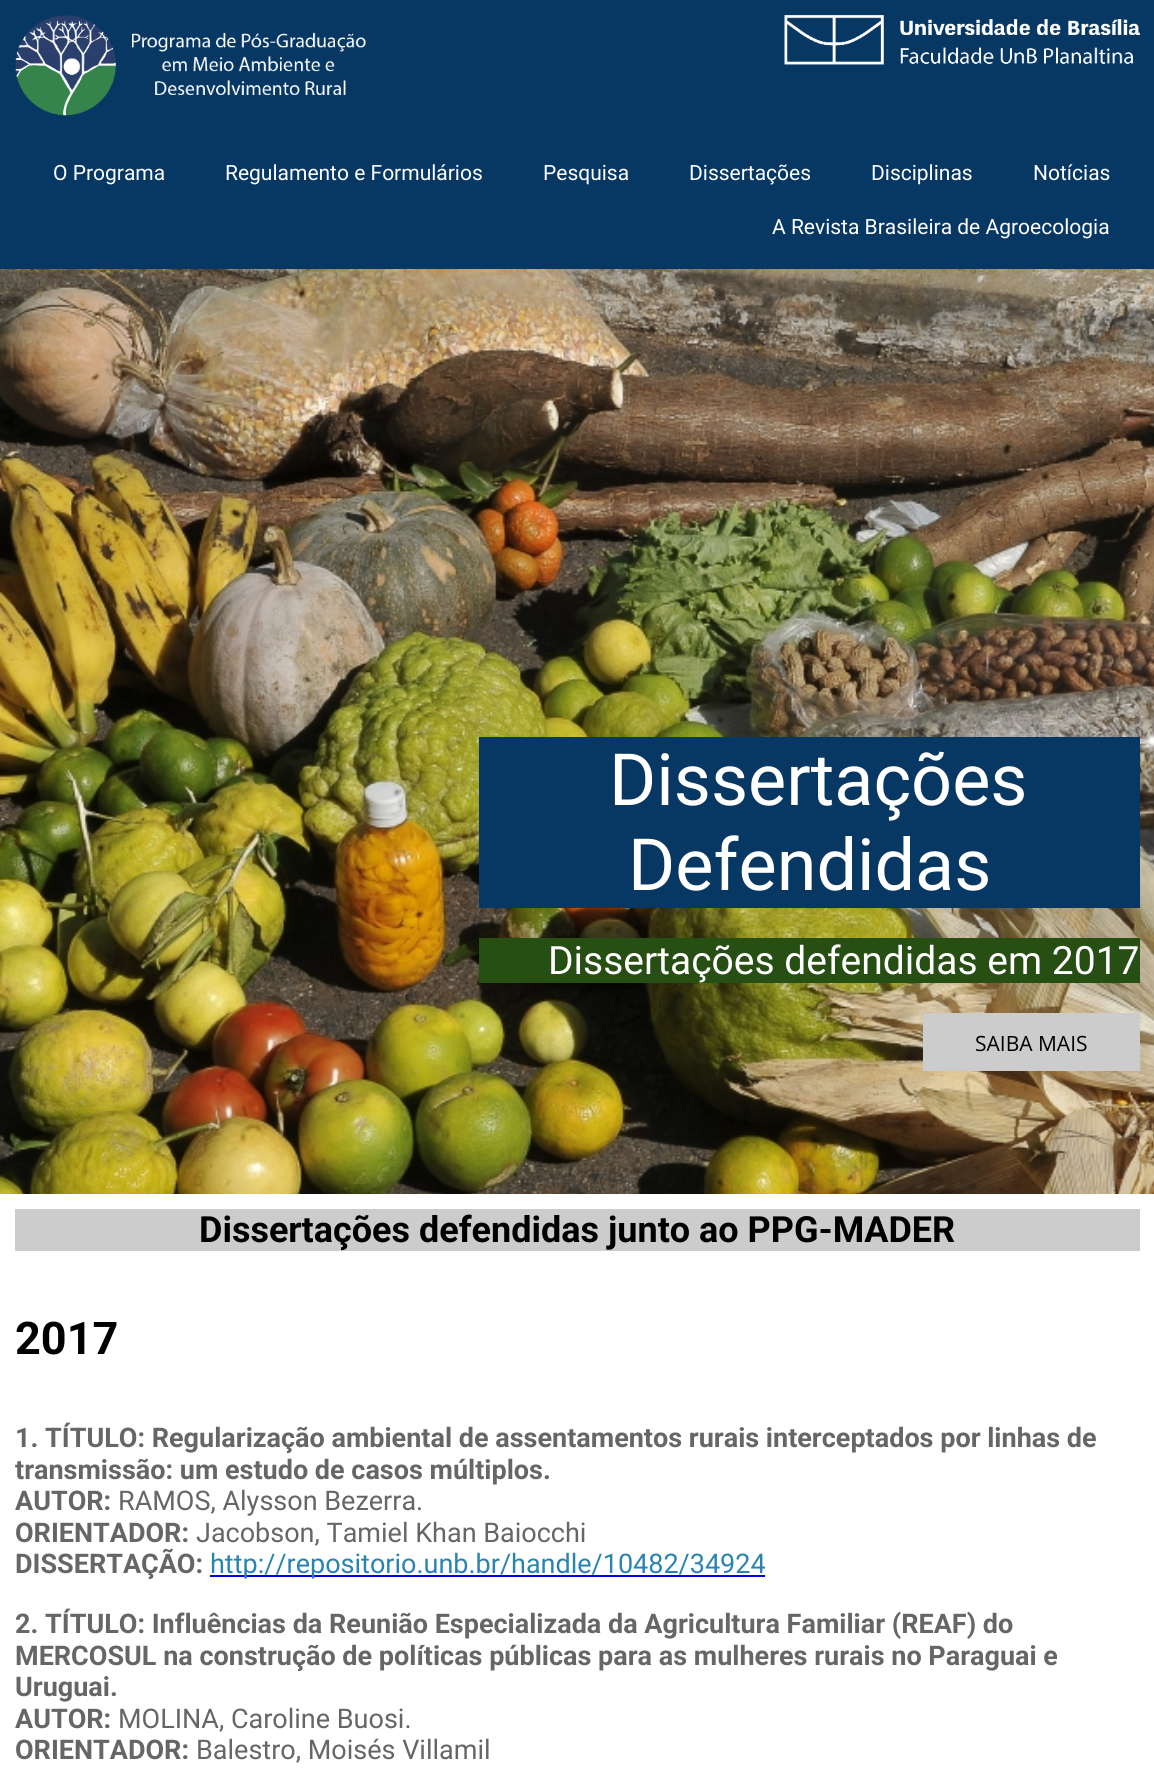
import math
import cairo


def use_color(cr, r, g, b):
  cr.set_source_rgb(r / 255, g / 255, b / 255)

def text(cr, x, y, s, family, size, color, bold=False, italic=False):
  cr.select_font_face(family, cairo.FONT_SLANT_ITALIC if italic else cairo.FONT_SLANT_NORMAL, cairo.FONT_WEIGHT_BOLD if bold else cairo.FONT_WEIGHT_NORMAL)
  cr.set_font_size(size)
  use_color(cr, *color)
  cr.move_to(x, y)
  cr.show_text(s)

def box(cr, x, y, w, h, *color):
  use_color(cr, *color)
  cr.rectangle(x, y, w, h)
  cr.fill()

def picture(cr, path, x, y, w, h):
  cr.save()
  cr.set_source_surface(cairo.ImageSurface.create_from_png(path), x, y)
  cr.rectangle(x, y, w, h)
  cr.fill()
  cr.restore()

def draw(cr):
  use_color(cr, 255, 255, 255)
  cr.paint()
  box(cr, 0, 0, 1154, 269, 7, 55, 99)
  picture(cr, "img_01.png", 15, 15, 351, 101)
  picture(cr, "img_02.png", 784, 15, 356, 50)
  picture(cr, "img_03.png", 0, 269, 1154, 925)
  box(cr, 479, 737, 661, 171, 7, 55, 99)
  box(cr, 479, 938, 661, 45, 39, 78, 19)
  box(cr, 923, 1013, 217, 58, 204, 204, 204)
  box(cr, 15, 1209, 1125, 42, 204, 204, 204)
  box(cr, 210, 1575, 555, 2, 0, 0, 238)
  text(cr, 53, 180, "O Programa", "Roboto", 21, (255, 255, 255))
  text(cr, 225, 180, "Regulamento e Formulários", "Roboto", 21, (255, 255, 255))
  text(cr, 543, 180, "Pesquisa", "Roboto", 21, (255, 255, 255))
  text(cr, 689, 180, "Dissertações", "Roboto", 21, (255, 255, 255))
  text(cr, 871, 180, "Disciplinas", "Roboto", 21, (255, 255, 255))
  text(cr, 1033, 180, "Notícias", "Roboto", 21, (255, 255, 255))
  text(cr, 772, 234, "A Revista Brasileira de Agroecologia", "Roboto", 21, (255, 255, 255))
  text(cr, 609, 805, "Dissertações", "Roboto", 72, (255, 255, 255))
  text(cr, 628, 890, "Defendidas", "Roboto", 72, (255, 255, 255))
  text(cr, 548, 974, "Dissertações defendidas em 2017", "Roboto", 39, (255, 255, 255))
  text(cr, 975, 1051, "SAIBA MAIS", "Open Sans", 21, (0, 0, 0))
  text(cr, 199, 1242, "Dissertações defendidas junto ao PPG-MADER", "Roboto", 36, (0, 0, 0), bold=True)
  text(cr, 15, 1354, "2017", "Roboto", 45, (0, 0, 0), bold=True)
  text(cr, 15, 1447, "1. TÍTULO: Regularização ambiental de assentamentos rurais interceptados por linhas de", "Roboto", 27, (102, 102, 102), bold=True)
  text(cr, 15, 1479, "transmissão: um estudo de casos múltiplos.", "Roboto", 27, (102, 102, 102), bold=True)
  text(cr, 15, 1510, "AUTOR:", "Roboto", 27, (102, 102, 102), bold=True)
  text(cr, 118, 1510, "RAMOS, Alysson Bezerra.", "Roboto", 27, (102, 102, 102))
  text(cr, 15, 1542, "ORIENTADOR:", "Roboto", 27, (102, 102, 102), bold=True)
  text(cr, 196, 1542, "Jacobson, Tamiel Khan Baiocchi", "Roboto", 27, (102, 102, 102))
  text(cr, 15, 1573, "DISSERTAÇÃO:", "Roboto", 27, (102, 102, 102), bold=True)
  text(cr, 210, 1573, "http://repositorio.unb.br/handle/10482/34924", "Roboto", 27, (42, 132, 174))
  text(cr, 15, 1633, "2. TÍTULO: Influências da Reunião Especializada da Agricultura Familiar (REAF) do", "Roboto", 27, (102, 102, 102), bold=True)
  text(cr, 15, 1665, "MERCOSUL na construção de políticas públicas para as mulheres rurais no Paraguai e", "Roboto", 27, (102, 102, 102), bold=True)
  text(cr, 15, 1696, "Uruguai.", "Roboto", 27, (102, 102, 102), bold=True)
  text(cr, 15, 1728, "AUTOR:", "Roboto", 27, (102, 102, 102), bold=True)
  text(cr, 118, 1728, "MOLINA, Caroline Buosi.", "Roboto", 27, (102, 102, 102))
  text(cr, 15, 1759, "ORIENTADOR:", "Roboto", 27, (102, 102, 102), bold=True)
  text(cr, 196, 1759, "Balestro, Moisés Villamil", "Roboto", 27, (102, 102, 102))


surface = cairo.ImageSurface(cairo.FORMAT_RGB24, 1154, 1773)
cr = cairo.Context(surface)
options = cairo.FontOptions()
options.set_hint_metrics(cairo.HINT_METRICS_OFF)
options.set_hint_style(cairo.HINT_STYLE_NONE)
cr.set_font_options(options)
cr.set_miter_limit(4)
draw(cr)
surface.write_to_png("out.png")
